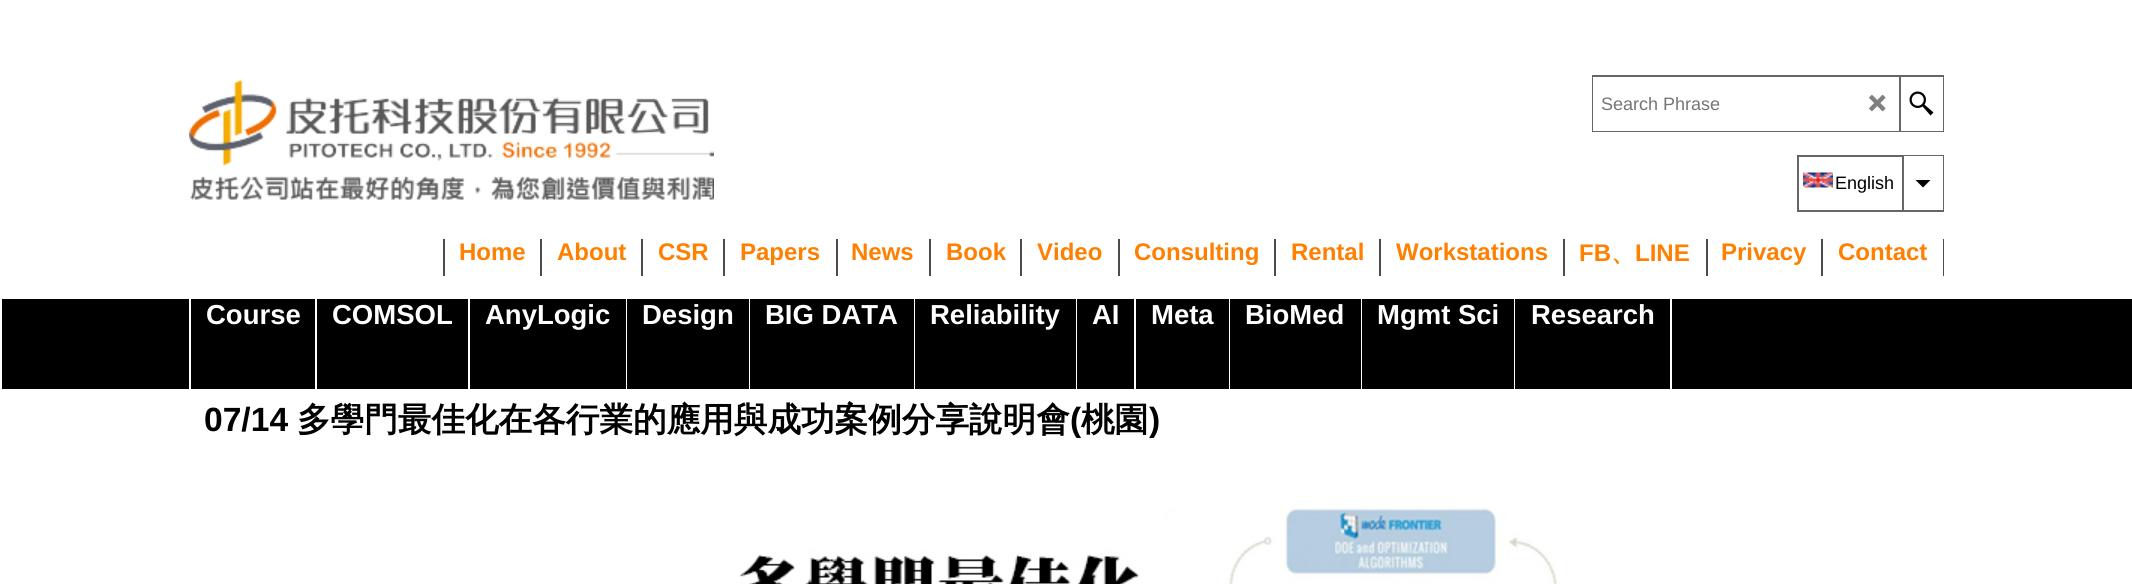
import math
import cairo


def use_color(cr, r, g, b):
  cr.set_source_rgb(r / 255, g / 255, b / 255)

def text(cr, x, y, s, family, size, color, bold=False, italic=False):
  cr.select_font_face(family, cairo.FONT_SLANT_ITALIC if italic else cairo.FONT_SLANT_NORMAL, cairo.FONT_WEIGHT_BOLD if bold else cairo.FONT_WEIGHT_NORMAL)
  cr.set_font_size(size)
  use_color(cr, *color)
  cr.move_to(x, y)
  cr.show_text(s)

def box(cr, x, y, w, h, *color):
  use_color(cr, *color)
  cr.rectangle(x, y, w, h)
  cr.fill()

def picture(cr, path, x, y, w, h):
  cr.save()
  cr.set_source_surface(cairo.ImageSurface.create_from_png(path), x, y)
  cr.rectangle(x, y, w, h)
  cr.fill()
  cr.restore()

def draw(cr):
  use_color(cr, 255, 255, 255)
  cr.paint()
  picture(cr, "img_01.png", 189, 79, 525, 121)
  cr.rectangle(1593, 76, 350, 55)
  use_color(cr, 102, 102, 102)
  cr.stroke()
  box(cr, 1593, 77, 306, 54, 255, 255, 255)
  picture(cr, "img_02.png", 1869, 94, 17, 18)
  box(cr, 1901, 77, 42, 54, 255, 255, 255)
  box(cr, 1899, 77, 2, 54, 102, 102, 102)
  picture(cr, "img_03.png", 1909, 91, 25, 25)
  cr.rectangle(1798, 156, 145, 55)
  cr.stroke()
  picture(cr, "img_04.png", 1803, 172, 30, 16)
  box(cr, 1904, 156, 39, 54, 255, 255, 255)
  box(cr, 1902, 156, 2, 54, 102, 102, 102)
  use_color(cr, 0, 0, 0)
  cr.new_path()
  cr.move_to(1915.5, 180)
  cr.line_to(1923, 187.5)
  cr.line_to(1930.5, 180)
  cr.close_path()
  cr.fill()
  box(cr, 443, 239, 2, 37, 76, 76, 76)
  box(cr, 540, 239, 2, 37, 76, 76, 76)
  box(cr, 641, 239, 2, 37, 76, 76, 76)
  box(cr, 723, 239, 2, 37, 76, 76, 76)
  box(cr, 836, 239, 2, 37, 76, 76, 76)
  box(cr, 929, 239, 2, 37, 76, 76, 76)
  box(cr, 1020, 239, 2, 37, 76, 76, 76)
  box(cr, 1118, 239, 2, 37, 76, 76, 76)
  box(cr, 1274, 239, 2, 37, 76, 76, 76)
  box(cr, 1379, 239, 2, 37, 76, 76, 76)
  box(cr, 1563, 239, 2, 37, 76, 76, 76)
  box(cr, 1706, 239, 2, 37, 76, 76, 76)
  box(cr, 1821, 239, 2, 37, 76, 76, 76)
  box(cr, 1943, 239, 1, 37, 76, 76, 76)
  box(cr, 2, 299, 2130, 90, 0, 0, 0)
  box(cr, 189, 299, 2, 90, 255, 255, 255)
  box(cr, 315, 299, 2, 90, 255, 255, 255)
  box(cr, 468, 299, 2, 90, 255, 255, 255)
  box(cr, 626, 299, 1, 90, 255, 255, 255)
  box(cr, 749, 299, 1, 90, 255, 255, 255)
  box(cr, 914, 299, 1, 90, 255, 255, 255)
  box(cr, 1076, 299, 1, 90, 255, 255, 255)
  box(cr, 1134, 299, 2, 90, 255, 255, 255)
  box(cr, 1229, 299, 1, 90, 255, 255, 255)
  box(cr, 1361, 299, 1, 90, 255, 255, 255)
  box(cr, 1514, 299, 1, 90, 255, 255, 255)
  box(cr, 1670, 299, 2, 90, 255, 255, 255)
  picture(cr, "img_05.png", 739, 507, 819, 77)
  text(cr, 1601, 110, "Search Phrase", "Liberation Sans", 18, (117, 117, 117))
  text(cr, 1835, 189, "English", "Liberation Sans", 18, (0, 0, 0))
  text(cr, 459, 260, "Home", "Liberation Sans", 24, (255, 127, 0), bold=True)
  text(cr, 557, 260, "About", "Liberation Sans", 24, (255, 127, 0), bold=True)
  text(cr, 658, 260, "CSR", "Liberation Sans", 24, (255, 127, 0), bold=True)
  text(cr, 740, 260, "Papers", "Liberation Sans", 24, (255, 127, 0), bold=True)
  text(cr, 851, 260, "News", "Liberation Sans", 24, (255, 127, 0), bold=True)
  text(cr, 946, 260, "Book", "Liberation Sans", 24, (255, 127, 0), bold=True)
  text(cr, 1037, 260, "Video", "Liberation Sans", 24, (255, 127, 0), bold=True)
  text(cr, 1134, 260, "Consulting", "Liberation Sans", 24, (255, 127, 0), bold=True)
  text(cr, 1291, 260, "Rental", "Liberation Sans", 24, (255, 127, 0), bold=True)
  text(cr, 1396, 260, "Workstations", "Liberation Sans", 24, (255, 127, 0), bold=True)
  text(cr, 1579, 261, "FB", "Liberation Sans", 24, (255, 127, 0), bold=True)
  text(cr, 1635, 261, "LINE", "Liberation Sans", 24, (255, 127, 0), bold=True)
  text(cr, 1611, 261, "、", "WenQuanYi Zen Hei", 24, (255, 127, 0), bold=True)
  text(cr, 1721, 260, "Privacy", "Liberation Sans", 24, (255, 127, 0), bold=True)
  text(cr, 1838, 260, "Contact", "Liberation Sans", 24, (255, 127, 0), bold=True)
  text(cr, 206, 324, "Course", "Liberation Sans", 27.5, (255, 255, 255), bold=True)
  text(cr, 332, 324, "COMSOL", "Liberation Sans", 27.5, (255, 255, 255), bold=True)
  text(cr, 485, 324, "AnyLogic", "Liberation Sans", 27.5, (255, 255, 255), bold=True)
  text(cr, 642, 324, "Design", "Liberation Sans", 27.5, (255, 255, 255), bold=True)
  text(cr, 765, 324, "BIG DATA", "Liberation Sans", 27.5, (255, 255, 255), bold=True)
  text(cr, 930, 324, "Reliability", "Liberation Sans", 27.5, (255, 255, 255), bold=True)
  text(cr, 1092, 324, "AI", "Liberation Sans", 27.5, (255, 255, 255), bold=True)
  text(cr, 1151, 324, "Meta", "Liberation Sans", 27.5, (255, 255, 255), bold=True)
  text(cr, 1245, 324, "BioMed", "Liberation Sans", 27.5, (255, 255, 255), bold=True)
  text(cr, 1377, 324, "Mgmt Sci", "Liberation Sans", 27.5, (255, 255, 255), bold=True)
  text(cr, 1531, 324, "Research", "Liberation Sans", 27.5, (255, 255, 255), bold=True)
  text(cr, 204, 431, "07/14", "Liberation Sans", 33.6, (0, 0, 0), bold=True)
  text(cr, 297, 431, "多學門最佳化在各行業的應用與成功案例分享說明會", "WenQuanYi Zen Hei", 33.6, (0, 0, 0), bold=True)
  text(cr, 1070, 431, "(", "Liberation Sans", 33.6, (0, 0, 0), bold=True)
  text(cr, 1081, 431, "桃園", "WenQuanYi Zen Hei", 33.6, (0, 0, 0), bold=True)
  text(cr, 1149, 431, ")", "Liberation Sans", 33.6, (0, 0, 0), bold=True)


surface = cairo.ImageSurface(cairo.FORMAT_RGB24, 2132, 584)
cr = cairo.Context(surface)
options = cairo.FontOptions()
options.set_hint_metrics(cairo.HINT_METRICS_OFF)
options.set_hint_style(cairo.HINT_STYLE_NONE)
cr.set_font_options(options)
cr.set_miter_limit(4)
draw(cr)
surface.write_to_png("out.png")
